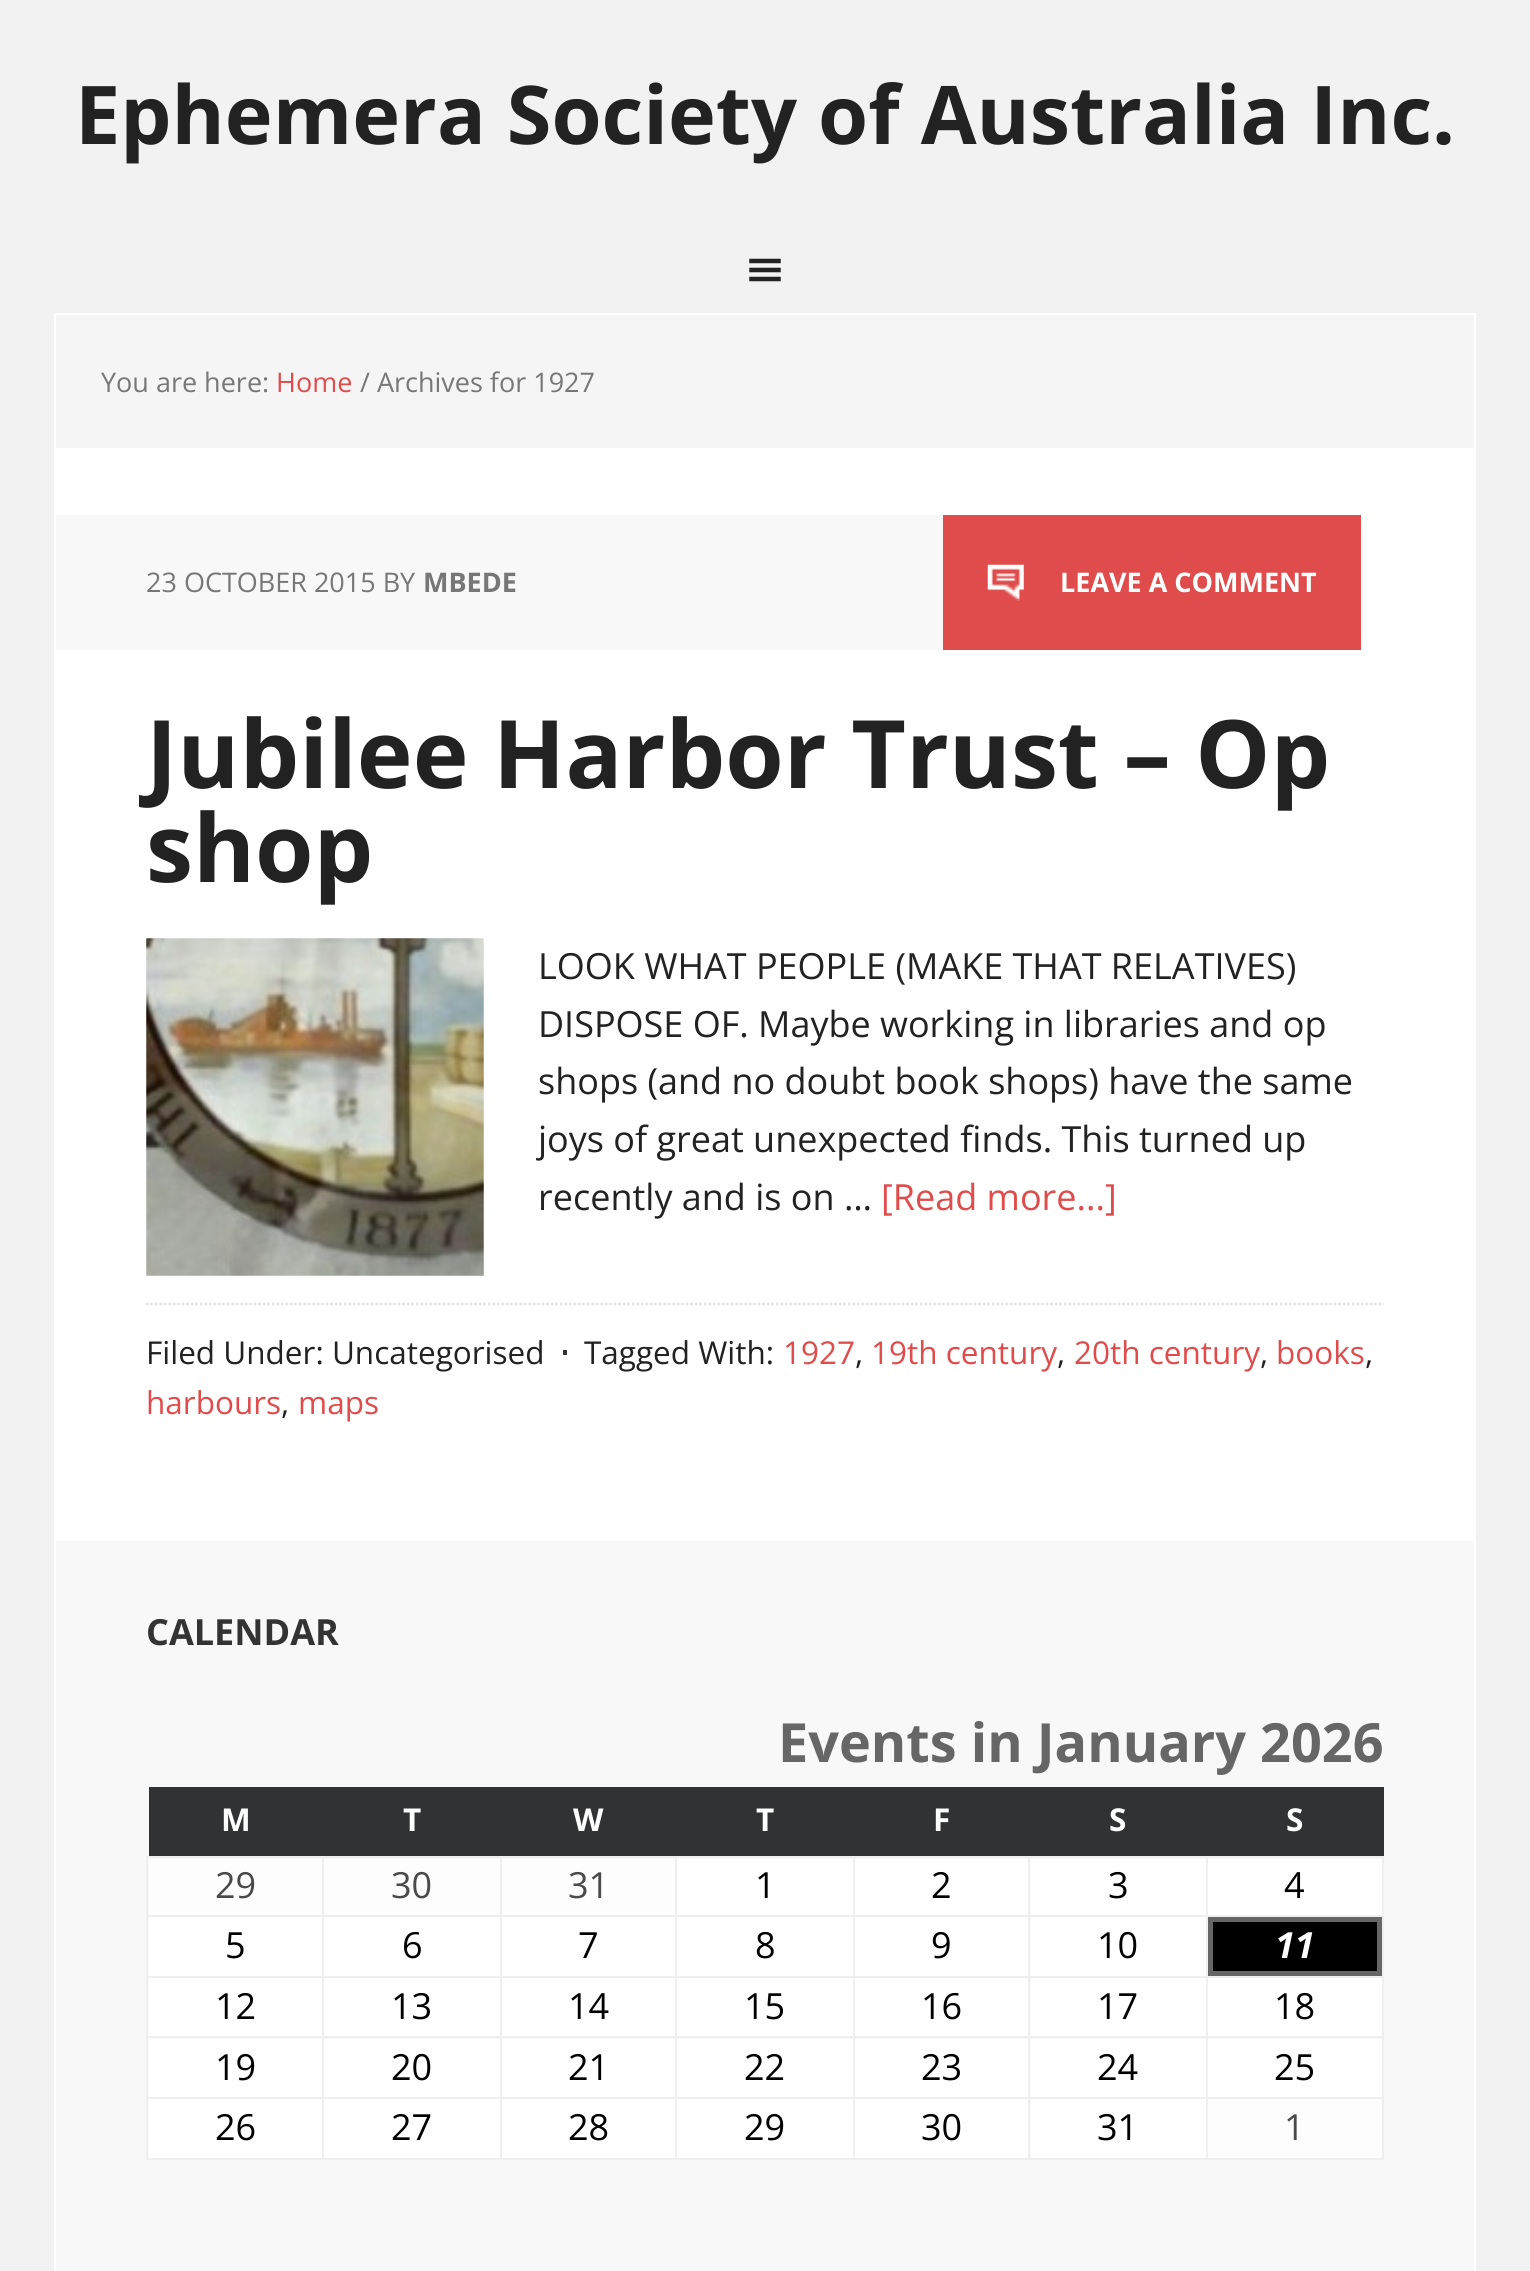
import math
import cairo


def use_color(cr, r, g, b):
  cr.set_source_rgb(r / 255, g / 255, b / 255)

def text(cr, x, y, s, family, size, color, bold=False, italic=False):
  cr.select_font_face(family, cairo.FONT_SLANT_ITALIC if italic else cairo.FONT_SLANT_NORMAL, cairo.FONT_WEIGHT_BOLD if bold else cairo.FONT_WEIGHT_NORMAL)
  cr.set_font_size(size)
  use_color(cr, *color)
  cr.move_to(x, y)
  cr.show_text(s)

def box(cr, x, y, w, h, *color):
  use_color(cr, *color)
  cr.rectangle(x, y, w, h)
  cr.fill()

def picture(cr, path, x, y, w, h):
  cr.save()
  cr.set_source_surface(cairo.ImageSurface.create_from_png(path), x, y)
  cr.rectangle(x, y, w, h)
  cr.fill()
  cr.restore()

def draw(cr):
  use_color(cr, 242, 242, 242)
  cr.paint()
  picture(cr, "img_01.png", 749, 258, 32, 24)
  cr.rectangle(55, 314, 1420, 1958)
  use_color(cr, 255, 255, 255)
  cr.stroke()
  box(cr, 56, 448, 1418, 1093, 255, 255, 255)
  box(cr, 56, 315, 1418, 133, 245, 245, 245)
  box(cr, 56, 515, 887, 135, 248, 248, 248)
  box(cr, 943, 515, 418, 135, 224, 75, 75)
  picture(cr, "img_02.png", 987, 564, 37, 37)
  picture(cr, "img_03.png", 146, 938, 338, 338)
  cr.new_path()
  cr.move_to(146, 1304)
  cr.line_to(1384, 1304)
  use_color(cr, 221, 221, 221)
  cr.set_line_width(2.2)
  cr.set_dash([2.25, 2.25])
  cr.stroke()
  box(cr, 563, 1350, 4, 5, 51, 51, 51)
  box(cr, 56, 1541, 1418, 730, 248, 248, 248)
  box(cr, 149, 1787, 1235, 69, 49, 50, 51)
  box(cr, 1206, 1856, 178, 2, 239, 239, 239)
  box(cr, 1206, 1915, 178, 2, 239, 239, 239)
  box(cr, 1206, 1976, 178, 2, 239, 239, 239)
  box(cr, 1206, 2036, 178, 2, 239, 239, 239)
  box(cr, 1206, 2097, 178, 2, 239, 239, 239)
  box(cr, 1382, 2097, 2, 63, 239, 239, 239)
  box(cr, 1206, 2158, 178, 2, 239, 239, 239)
  box(cr, 1206, 2097, 2, 63, 239, 239, 239)
  box(cr, 1028, 2097, 180, 2, 239, 239, 239)
  box(cr, 1206, 2036, 2, 63, 239, 239, 239)
  box(cr, 1028, 2036, 180, 2, 239, 239, 239)
  box(cr, 1206, 1976, 2, 63, 239, 239, 239)
  box(cr, 1028, 1976, 180, 2, 239, 239, 239)
  box(cr, 1206, 1915, 2, 63, 239, 239, 239)
  box(cr, 1028, 1915, 180, 2, 239, 239, 239)
  box(cr, 1206, 1856, 2, 61, 239, 239, 239)
  box(cr, 1028, 1856, 180, 2, 239, 239, 239)
  box(cr, 1028, 2158, 180, 2, 239, 239, 239)
  box(cr, 1028, 2097, 2, 63, 239, 239, 239)
  box(cr, 853, 2097, 178, 2, 239, 239, 239)
  box(cr, 1028, 2036, 2, 63, 239, 239, 239)
  box(cr, 853, 2036, 178, 2, 239, 239, 239)
  box(cr, 1028, 1976, 2, 63, 239, 239, 239)
  box(cr, 853, 1976, 178, 2, 239, 239, 239)
  box(cr, 1028, 1915, 2, 63, 239, 239, 239)
  box(cr, 853, 1915, 178, 2, 239, 239, 239)
  box(cr, 1028, 1856, 2, 61, 239, 239, 239)
  box(cr, 853, 1856, 178, 2, 239, 239, 239)
  box(cr, 853, 2158, 178, 2, 239, 239, 239)
  box(cr, 853, 2097, 2, 63, 239, 239, 239)
  box(cr, 675, 2097, 180, 2, 239, 239, 239)
  box(cr, 853, 2036, 2, 63, 239, 239, 239)
  box(cr, 675, 2036, 180, 2, 239, 239, 239)
  box(cr, 853, 1976, 2, 63, 239, 239, 239)
  box(cr, 675, 1976, 180, 2, 239, 239, 239)
  box(cr, 853, 1915, 2, 63, 239, 239, 239)
  box(cr, 675, 1915, 180, 2, 239, 239, 239)
  box(cr, 853, 1856, 2, 61, 239, 239, 239)
  box(cr, 675, 1856, 180, 2, 239, 239, 239)
  box(cr, 675, 2158, 180, 2, 239, 239, 239)
  box(cr, 675, 2097, 2, 63, 239, 239, 239)
  box(cr, 500, 2097, 177, 2, 239, 239, 239)
  box(cr, 675, 2036, 2, 63, 239, 239, 239)
  box(cr, 500, 2036, 177, 2, 239, 239, 239)
  box(cr, 675, 1976, 2, 63, 239, 239, 239)
  box(cr, 500, 1976, 177, 2, 239, 239, 239)
  box(cr, 675, 1915, 2, 63, 239, 239, 239)
  box(cr, 500, 1915, 177, 2, 239, 239, 239)
  box(cr, 675, 1856, 2, 61, 239, 239, 239)
  box(cr, 500, 1856, 177, 2, 239, 239, 239)
  box(cr, 500, 2158, 177, 2, 239, 239, 239)
  box(cr, 500, 2097, 2, 63, 239, 239, 239)
  box(cr, 322, 2097, 180, 2, 239, 239, 239)
  box(cr, 500, 2036, 2, 63, 239, 239, 239)
  box(cr, 322, 2036, 180, 2, 239, 239, 239)
  box(cr, 500, 1976, 2, 63, 239, 239, 239)
  box(cr, 322, 1976, 180, 2, 239, 239, 239)
  box(cr, 500, 1915, 2, 63, 239, 239, 239)
  box(cr, 322, 1915, 180, 2, 239, 239, 239)
  box(cr, 500, 1856, 2, 61, 239, 239, 239)
  box(cr, 322, 1856, 180, 2, 239, 239, 239)
  box(cr, 322, 2158, 180, 2, 239, 239, 239)
  box(cr, 322, 2097, 2, 63, 239, 239, 239)
  box(cr, 146, 2097, 178, 2, 239, 239, 239)
  box(cr, 322, 2036, 2, 63, 239, 239, 239)
  box(cr, 146, 2036, 178, 2, 239, 239, 239)
  box(cr, 322, 1976, 2, 63, 239, 239, 239)
  box(cr, 146, 1976, 178, 2, 239, 239, 239)
  box(cr, 322, 1915, 2, 63, 239, 239, 239)
  box(cr, 146, 1915, 178, 2, 239, 239, 239)
  box(cr, 322, 1856, 2, 61, 239, 239, 239)
  box(cr, 146, 1856, 178, 2, 239, 239, 239)
  box(cr, 146, 2158, 178, 2, 239, 239, 239)
  box(cr, 146, 2097, 2, 63, 239, 239, 239)
  box(cr, 146, 2036, 2, 63, 239, 239, 239)
  box(cr, 146, 1976, 2, 63, 239, 239, 239)
  box(cr, 146, 1915, 2, 63, 239, 239, 239)
  box(cr, 146, 1856, 2, 61, 239, 239, 239)
  box(cr, 149, 1859, 173, 56, 253, 253, 253)
  box(cr, 324, 1859, 176, 56, 253, 253, 253)
  box(cr, 502, 1859, 173, 56, 253, 253, 253)
  box(cr, 677, 1859, 176, 56, 255, 255, 255)
  box(cr, 855, 1859, 173, 56, 255, 255, 255)
  box(cr, 1031, 1859, 175, 56, 255, 255, 255)
  box(cr, 1382, 2036, 2, 63, 239, 239, 239)
  box(cr, 1382, 1976, 2, 63, 239, 239, 239)
  box(cr, 1382, 1915, 2, 63, 239, 239, 239)
  box(cr, 1382, 1856, 2, 61, 239, 239, 239)
  box(cr, 1208, 1859, 174, 56, 255, 255, 255)
  box(cr, 149, 1917, 173, 59, 255, 255, 255)
  box(cr, 324, 1917, 176, 59, 255, 255, 255)
  box(cr, 502, 1917, 173, 59, 255, 255, 255)
  box(cr, 677, 1917, 176, 59, 255, 255, 255)
  box(cr, 855, 1917, 173, 59, 255, 255, 255)
  box(cr, 1031, 1917, 175, 59, 255, 255, 255)
  use_color(cr, 0, 0, 0)
  cr.rectangle(1210.5, 1919.5, 169, 54)
  cr.fill_preserve()
  use_color(cr, 102, 102, 102)
  cr.set_line_width(5)
  cr.set_dash([])
  cr.stroke()
  box(cr, 149, 1978, 173, 58, 255, 255, 255)
  box(cr, 324, 1978, 176, 58, 255, 255, 255)
  box(cr, 502, 1978, 173, 58, 255, 255, 255)
  box(cr, 677, 1978, 176, 58, 255, 255, 255)
  box(cr, 855, 1978, 173, 58, 255, 255, 255)
  box(cr, 1031, 1978, 175, 58, 255, 255, 255)
  box(cr, 1208, 1978, 174, 58, 255, 255, 255)
  box(cr, 149, 2039, 173, 58, 255, 255, 255)
  box(cr, 324, 2039, 176, 58, 255, 255, 255)
  box(cr, 502, 2039, 173, 58, 255, 255, 255)
  box(cr, 677, 2039, 176, 58, 255, 255, 255)
  box(cr, 855, 2039, 173, 58, 255, 255, 255)
  box(cr, 1031, 2039, 175, 58, 255, 255, 255)
  box(cr, 1208, 2039, 174, 58, 255, 255, 255)
  box(cr, 149, 2099, 173, 59, 255, 255, 255)
  box(cr, 324, 2099, 176, 59, 255, 255, 255)
  box(cr, 502, 2099, 173, 59, 255, 255, 255)
  box(cr, 677, 2099, 176, 59, 255, 255, 255)
  box(cr, 855, 2099, 173, 59, 255, 255, 255)
  box(cr, 1031, 2099, 175, 59, 255, 255, 255)
  box(cr, 1208, 2099, 174, 59, 253, 253, 253)
  text(cr, 75, 144, "Ephemera Society of Australia Inc.", "Open Sans", 81, (34, 34, 34), bold=True)
  text(cr, 101, 392, "You are here:", "Open Sans", 27, (119, 119, 119))
  text(cr, 276, 392, "Home", "Open Sans", 27, (224, 75, 75))
  text(cr, 360, 392, "/ Archives for 1927", "Open Sans", 27, (119, 119, 119))
  text(cr, 146, 592, "23 OCTOBER 2015 BY", "Open Sans", 27, (119, 119, 119))
  text(cr, 423, 592, "MBEDE", "Open Sans", 27, (119, 119, 119), bold=True)
  text(cr, 1060, 592, "LEAVE A COMMENT", "Open Sans", 27, (255, 255, 255), bold=True)
  text(cr, 146, 788, "Jubilee Harbor Trust – Op", "Open Sans", 94.5, (34, 34, 34), bold=True)
  text(cr, 146, 882, "shop", "Open Sans", 94.5, (34, 34, 34), bold=True)
  text(cr, 538, 979, "LOOK WHAT PEOPLE (MAKE THAT RELATIVES)", "Open Sans", 36, (34, 34, 34))
  text(cr, 538, 1037, "DISPOSE OF. Maybe working in libraries and op", "Open Sans", 36, (34, 34, 34))
  text(cr, 538, 1094, "shops (and no doubt book shops) have the same", "Open Sans", 36, (34, 34, 34))
  text(cr, 538, 1152, "joys of great unexpected finds. This turned up", "Open Sans", 36, (34, 34, 34))
  text(cr, 538, 1210, "recently and is on …", "Open Sans", 36, (34, 34, 34))
  text(cr, 881, 1210, "[Read more...]", "Open Sans", 36, (224, 75, 75))
  text(cr, 146, 1364, "Filed Under: Uncategorised", "Open Sans", 31.5, (34, 34, 34))
  text(cr, 584, 1364, "Tagged With:", "Open Sans", 31.5, (34, 34, 34))
  text(cr, 783, 1364, "1927", "Open Sans", 31.5, (224, 75, 75))
  text(cr, 855, 1364, ",", "Open Sans", 31.5, (34, 34, 34))
  text(cr, 871, 1364, "19th century", "Open Sans", 31.5, (224, 75, 75))
  text(cr, 1057, 1364, ",", "Open Sans", 31.5, (34, 34, 34))
  text(cr, 1074, 1364, "20th century", "Open Sans", 31.5, (224, 75, 75))
  text(cr, 1260, 1364, ",", "Open Sans", 31.5, (34, 34, 34))
  text(cr, 1276, 1364, "books", "Open Sans", 31.5, (224, 75, 75))
  text(cr, 1365, 1364, ",", "Open Sans", 31.5, (34, 34, 34))
  text(cr, 146, 1414, "harbours", "Open Sans", 31.5, (224, 75, 75))
  text(cr, 281, 1414, ",", "Open Sans", 31.5, (34, 34, 34))
  text(cr, 298, 1414, "maps", "Open Sans", 31.5, (224, 75, 75))
  text(cr, 146, 1645, "CALENDAR", "Open Sans", 36, (51, 51, 51), bold=True)
  text(cr, 778, 1762, "Events in January 2026", "Open Sans", 54, (102, 102, 102), bold=True)
  text(cr, 221, 1831, "M", "Open Sans", 31.5, (255, 255, 255), bold=True)
  text(cr, 403, 1831, "T", "Open Sans", 31.5, (255, 255, 255), bold=True)
  text(cr, 573, 1831, "W", "Open Sans", 31.5, (255, 255, 255), bold=True)
  text(cr, 756, 1831, "T", "Open Sans", 31.5, (255, 255, 255), bold=True)
  text(cr, 933, 1831, "F", "Open Sans", 31.5, (255, 255, 255), bold=True)
  text(cr, 1109, 1831, "S", "Open Sans", 31.5, (255, 255, 255), bold=True)
  text(cr, 1286, 1831, "S", "Open Sans", 31.5, (255, 255, 255), bold=True)
  text(cr, 215, 1898, "29", "Open Sans", 36, (74, 74, 74))
  text(cr, 391, 1898, "30", "Open Sans", 36, (74, 74, 74))
  text(cr, 568, 1898, "31", "Open Sans", 36, (74, 74, 74))
  text(cr, 755, 1898, "1", "Open Sans", 36, (0, 0, 0))
  text(cr, 931, 1898, "2", "Open Sans", 36, (0, 0, 0))
  text(cr, 1108, 1898, "3", "Open Sans", 36, (0, 0, 0))
  text(cr, 1284, 1898, "4", "Open Sans", 36, (0, 0, 0))
  text(cr, 225, 1958, "5", "Open Sans", 36, (0, 0, 0))
  text(cr, 402, 1958, "6", "Open Sans", 36, (0, 0, 0))
  text(cr, 578, 1958, "7", "Open Sans", 36, (0, 0, 0))
  text(cr, 755, 1958, "8", "Open Sans", 36, (0, 0, 0))
  text(cr, 931, 1958, "9", "Open Sans", 36, (0, 0, 0))
  text(cr, 1097, 1958, "10", "Open Sans", 36, (0, 0, 0))
  text(cr, 1275, 1958, "11", "Open Sans", 36, (255, 255, 255), bold=True, italic=True)
  text(cr, 215, 2019, "12", "Open Sans", 36, (0, 0, 0))
  text(cr, 391, 2019, "13", "Open Sans", 36, (0, 0, 0))
  text(cr, 568, 2019, "14", "Open Sans", 36, (0, 0, 0))
  text(cr, 744, 2019, "15", "Open Sans", 36, (0, 0, 0))
  text(cr, 921, 2019, "16", "Open Sans", 36, (0, 0, 0))
  text(cr, 1097, 2019, "17", "Open Sans", 36, (0, 0, 0))
  text(cr, 1274, 2019, "18", "Open Sans", 36, (0, 0, 0))
  text(cr, 215, 2080, "19", "Open Sans", 36, (0, 0, 0))
  text(cr, 391, 2080, "20", "Open Sans", 36, (0, 0, 0))
  text(cr, 568, 2080, "21", "Open Sans", 36, (0, 0, 0))
  text(cr, 744, 2080, "22", "Open Sans", 36, (0, 0, 0))
  text(cr, 921, 2080, "23", "Open Sans", 36, (0, 0, 0))
  text(cr, 1097, 2080, "24", "Open Sans", 36, (0, 0, 0))
  text(cr, 1274, 2080, "25", "Open Sans", 36, (0, 0, 0))
  text(cr, 215, 2140, "26", "Open Sans", 36, (0, 0, 0))
  text(cr, 391, 2140, "27", "Open Sans", 36, (0, 0, 0))
  text(cr, 568, 2140, "28", "Open Sans", 36, (0, 0, 0))
  text(cr, 744, 2140, "29", "Open Sans", 36, (0, 0, 0))
  text(cr, 921, 2140, "30", "Open Sans", 36, (0, 0, 0))
  text(cr, 1097, 2140, "31", "Open Sans", 36, (0, 0, 0))
  text(cr, 1284, 2140, "1", "Open Sans", 36, (74, 74, 74))


surface = cairo.ImageSurface(cairo.FORMAT_RGB24, 1530, 2271)
cr = cairo.Context(surface)
options = cairo.FontOptions()
options.set_hint_metrics(cairo.HINT_METRICS_OFF)
options.set_hint_style(cairo.HINT_STYLE_NONE)
cr.set_font_options(options)
cr.set_miter_limit(4)
draw(cr)
surface.write_to_png("out.png")
